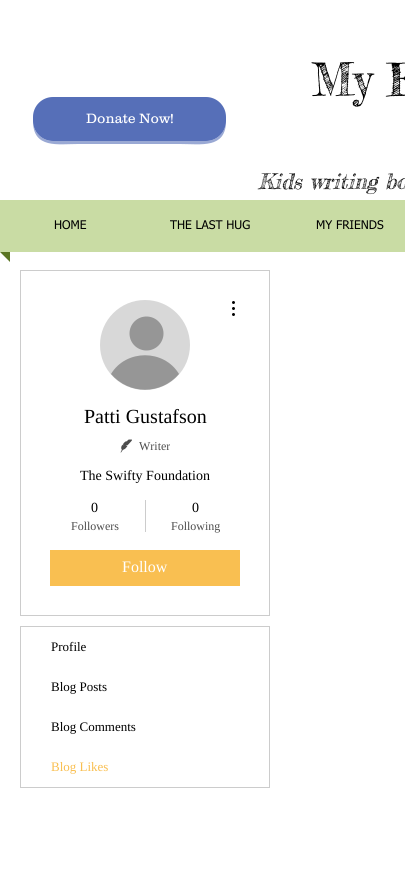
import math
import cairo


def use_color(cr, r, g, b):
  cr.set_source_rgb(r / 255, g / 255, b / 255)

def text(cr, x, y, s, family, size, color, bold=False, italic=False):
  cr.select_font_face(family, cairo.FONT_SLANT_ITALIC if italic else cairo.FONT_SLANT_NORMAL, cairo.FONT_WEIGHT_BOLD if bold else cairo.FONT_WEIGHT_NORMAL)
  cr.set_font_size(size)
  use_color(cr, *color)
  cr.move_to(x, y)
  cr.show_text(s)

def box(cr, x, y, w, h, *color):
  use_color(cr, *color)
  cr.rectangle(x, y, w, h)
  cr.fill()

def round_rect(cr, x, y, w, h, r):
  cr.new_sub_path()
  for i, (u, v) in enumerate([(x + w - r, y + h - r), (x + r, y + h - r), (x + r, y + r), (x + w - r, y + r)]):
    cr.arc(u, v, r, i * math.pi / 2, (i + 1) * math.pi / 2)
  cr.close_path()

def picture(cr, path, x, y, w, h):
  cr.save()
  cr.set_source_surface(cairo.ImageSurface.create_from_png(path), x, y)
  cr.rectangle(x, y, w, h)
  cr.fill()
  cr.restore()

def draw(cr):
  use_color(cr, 255, 255, 255)
  cr.paint()
  use_color(cr, 154, 169, 212)
  cr.new_path()
  cr.move_to(33, 121)
  cr.curve_to(33, 149, 58, 144, 78, 144)
  cr.line_to(180, 144)
  cr.curve_to(201, 144, 226, 149, 226, 121)
  cr.curve_to(226, 132, 217, 141, 206, 141)
  cr.line_to(53, 141)
  cr.curve_to(42, 141, 33, 132, 33, 121)
  cr.close_path()
  cr.fill()
  use_color(cr, 86, 111, 184)
  round_rect(cr, 33, 97, 193, 44, 20)
  cr.fill()
  box(cr, 0, 200, 405, 52, 201, 220, 164)
  use_color(cr, 91, 118, 35)
  cr.new_path()
  cr.move_to(0, 252)
  cr.line_to(10, 252)
  cr.line_to(10, 262)
  cr.close_path()
  cr.fill()
  cr.rectangle(20.5, 270.5, 249, 345)
  use_color(cr, 204, 204, 204)
  cr.set_line_width(1)
  cr.stroke()
  use_color(cr, 216, 216, 216)
  cr.arc(145, 345, 45, 0, 2 * math.pi)
  cr.fill()
  use_color(cr, 150, 150, 150)
  cr.arc(146.5, 333.5, 17, 0, 2 * math.pi)
  cr.fill()
  cr.new_path()
  cr.move_to(179, 374)
  cr.curve_to(161, 395, 129, 395, 111, 374)
  cr.curve_to(126, 349, 164, 349, 179, 374)
  cr.close_path()
  cr.fill()
  picture(cr, "img_01.png", 232, 301, 3, 15)
  picture(cr, "img_02.png", 120, 439, 12, 14)
  box(cr, 145, 500, 1, 32, 204, 204, 204)
  box(cr, 50, 550, 190, 36, 249, 191, 81)
  cr.rectangle(20.5, 626.5, 249, 161)
  use_color(cr, 204, 204, 204)
  cr.stroke()
  text(cr, 312, 96, "My F", "Fredericka the Great", 45, (0, 0, 0))
  text(cr, 86, 123, "Donate Now!", "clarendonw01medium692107 Light", 14, (255, 255, 255))
  text(cr, 258, 189, "Kids writing bo", "Fredericka the Great", 21, (0, 0, 0), italic=True)
  text(cr, 54, 229, "HOME", "tahoma", 12, (0, 0, 0))
  text(cr, 170, 229, "THE LAST HUG", "tahoma", 12, (0, 0, 0))
  text(cr, 316, 229, "MY FRIENDS", "tahoma", 12, (0, 0, 0))
  text(cr, 84, 423, "Patti Gustafson", "Liberation Serif", 20, (0, 0, 0))
  text(cr, 139, 450, "Writer", "Liberation Serif", 12, (77, 77, 77))
  text(cr, 80, 480, "The Swifty Foundation", "Liberation Serif", 14, (0, 0, 0))
  text(cr, 91, 512, "0", "Liberation Serif", 14, (0, 0, 0))
  text(cr, 71, 530, "Followers", "Liberation Serif", 12, (77, 77, 77))
  text(cr, 192, 512, "0", "Liberation Serif", 14, (0, 0, 0))
  text(cr, 171, 530, "Following", "Liberation Serif", 12, (77, 77, 77))
  text(cr, 122, 572, "Follow", "Liberation Serif", 16, (255, 255, 255))
  text(cr, 51, 651, "Profile", "Liberation Serif", 13, (0, 0, 0))
  text(cr, 51, 691, "Blog Posts", "Liberation Serif", 13, (0, 0, 0))
  text(cr, 51, 731, "Blog Comments", "Liberation Serif", 13, (0, 0, 0))
  text(cr, 51, 771, "Blog Likes", "Liberation Serif", 13, (249, 191, 81))


surface = cairo.ImageSurface(cairo.FORMAT_RGB24, 405, 874)
cr = cairo.Context(surface)
options = cairo.FontOptions()
options.set_hint_metrics(cairo.HINT_METRICS_OFF)
options.set_hint_style(cairo.HINT_STYLE_NONE)
cr.set_font_options(options)
cr.set_miter_limit(4)
draw(cr)
surface.write_to_png("out.png")
